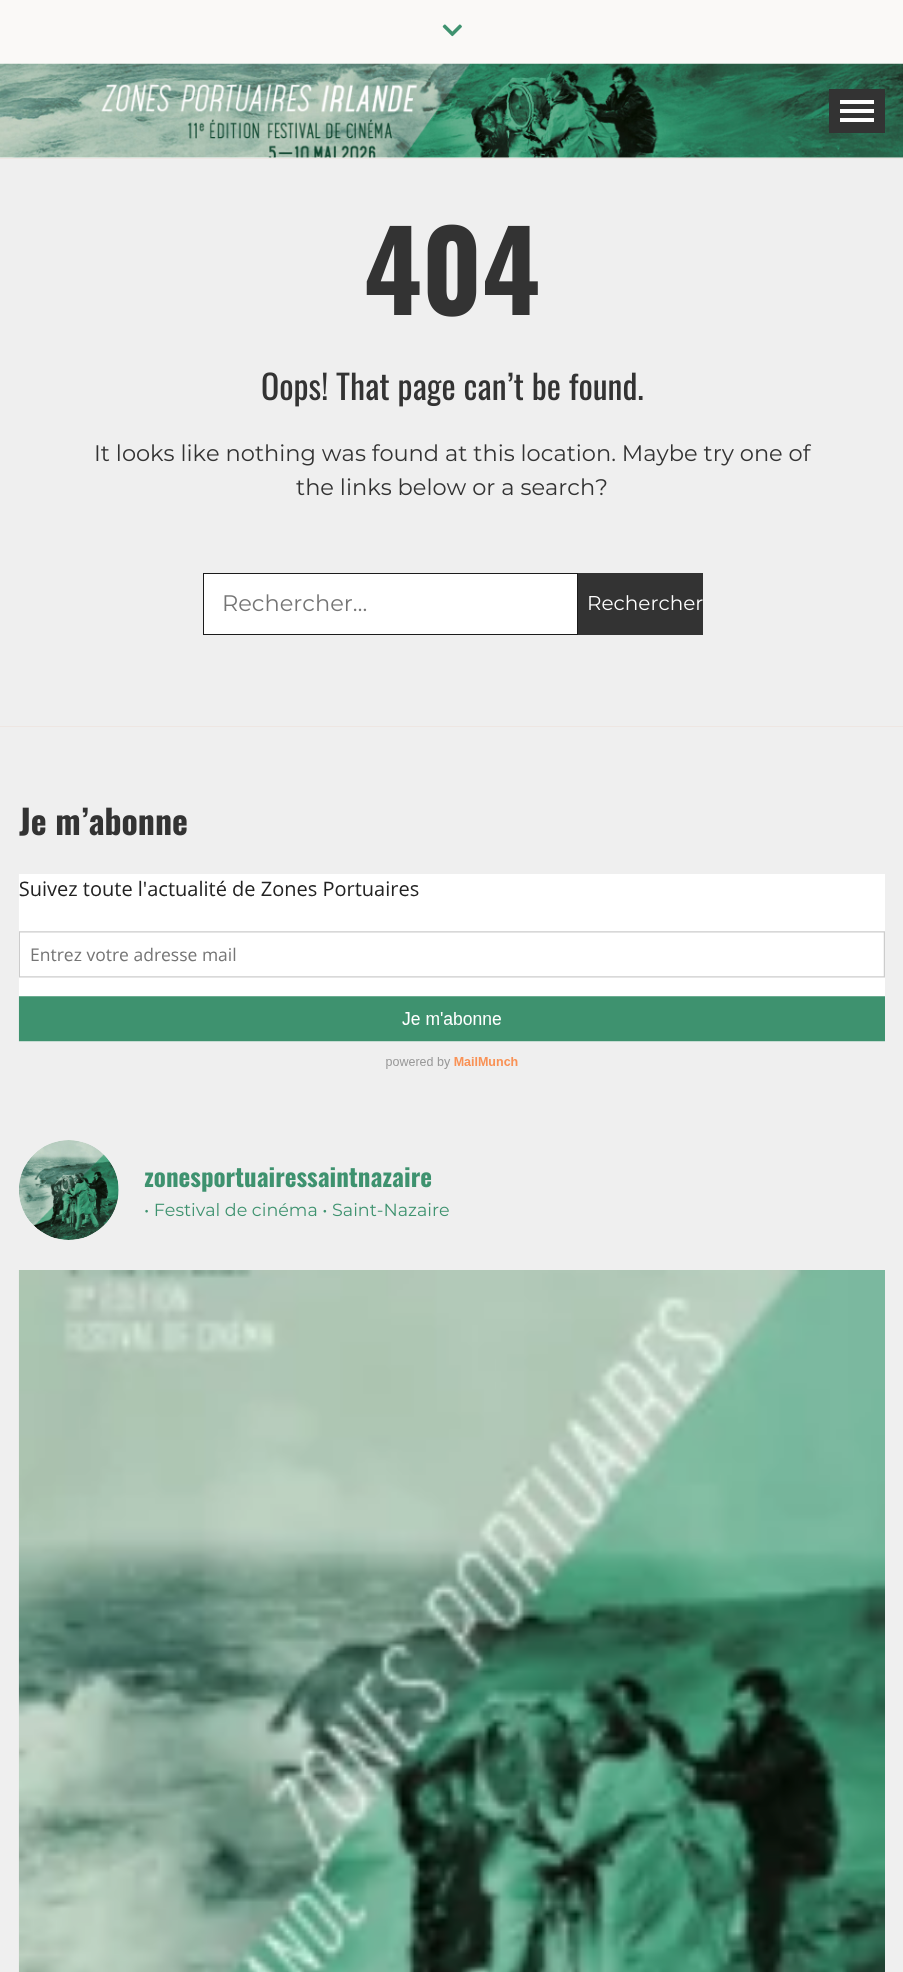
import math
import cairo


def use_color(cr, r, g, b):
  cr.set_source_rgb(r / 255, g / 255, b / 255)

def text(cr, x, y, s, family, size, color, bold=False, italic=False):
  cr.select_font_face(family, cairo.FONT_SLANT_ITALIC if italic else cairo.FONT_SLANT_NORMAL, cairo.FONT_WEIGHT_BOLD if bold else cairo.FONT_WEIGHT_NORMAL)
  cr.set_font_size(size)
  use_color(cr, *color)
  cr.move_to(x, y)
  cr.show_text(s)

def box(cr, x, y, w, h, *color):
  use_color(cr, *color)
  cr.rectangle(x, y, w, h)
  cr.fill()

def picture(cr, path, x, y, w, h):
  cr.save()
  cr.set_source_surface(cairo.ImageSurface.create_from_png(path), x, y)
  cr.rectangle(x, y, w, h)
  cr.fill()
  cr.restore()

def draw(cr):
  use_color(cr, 239, 239, 239)
  cr.paint()
  box(cr, 0, 157, 903, 1, 255, 255, 255)
  box(cr, 0, 0, 903, 64, 250, 249, 247)
  picture(cr, "img_01.png", 442, 24, 20, 13)
  picture(cr, "img_02.png", 0, 63, 903, 95)
  box(cr, 829, 89, 56, 44, 51, 51, 51)
  box(cr, 840, 100, 34, 4, 255, 255, 255)
  box(cr, 840, 109, 34, 4, 255, 255, 255)
  box(cr, 840, 118, 34, 4, 255, 255, 255)
  box(cr, 0, 158, 903, 1, 238, 230, 226)
  use_color(cr, 255, 255, 255)
  cr.rectangle(203.5, 573.5, 374, 61)
  cr.fill_preserve()
  use_color(cr, 27, 27, 27)
  cr.set_line_width(1)
  cr.stroke()
  box(cr, 578, 573, 125, 62, 51, 51, 51)
  box(cr, 0, 726, 903, 1, 238, 230, 226)
  picture(cr, "img_03.png", 18, 874, 867, 195)
  picture(cr, "img_04.png", 19, 1140, 100, 100)
  picture(cr, "img_05.png", 18, 1270, 867, 702)
  text(cr, 364, 315, "404", "Oswald", 110, (51, 51, 51), bold=True)
  text(cr, 261, 400, "Oops! That page can’t be found.", "Oswald", 33.75, (51, 51, 51))
  text(cr, 94, 461, "It looks like nothing was found at this location. Maybe try one of", "Montserrat", 22.5, (51, 51, 51))
  text(cr, 296, 495, "the links below or a search?", "Montserrat", 22.5, (51, 51, 51))
  text(cr, 222, 611, "Rechercher…", "Montserrat", 22.5, (117, 117, 117))
  text(cr, 587, 610, "Rechercher", "Montserrat", 20, (255, 255, 255))
  text(cr, 19, 835, "Je m’abonne", "Oswald", 33.75, (51, 51, 51), bold=True)
  text(cr, 144, 1187, "zonesportuairessaintnazaire", "Oswald", 25, (62, 146, 111), bold=True)
  text(cr, 144, 1216, "• Festival de cinéma • Saint-Nazaire", "Montserrat", 17.5, (62, 146, 111))


surface = cairo.ImageSurface(cairo.FORMAT_RGB24, 903, 1972)
cr = cairo.Context(surface)
options = cairo.FontOptions()
options.set_hint_metrics(cairo.HINT_METRICS_OFF)
options.set_hint_style(cairo.HINT_STYLE_NONE)
cr.set_font_options(options)
cr.set_miter_limit(4)
draw(cr)
surface.write_to_png("out.png")
